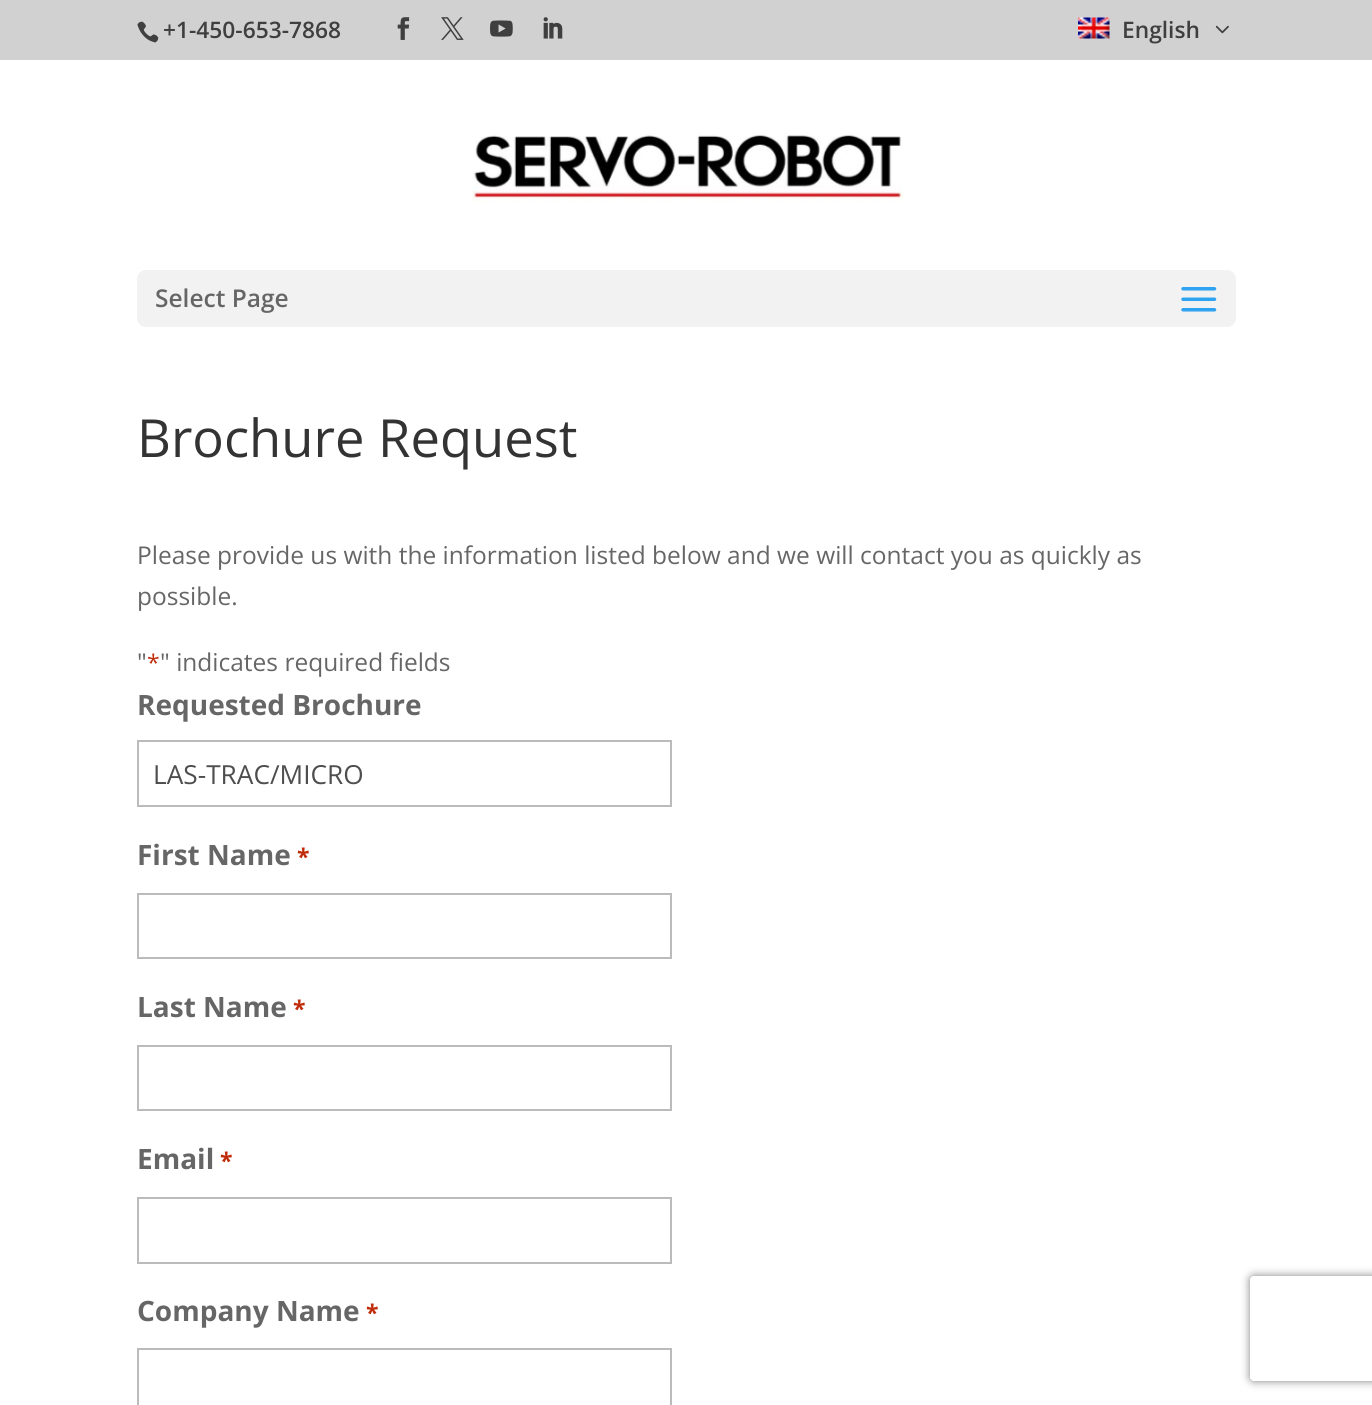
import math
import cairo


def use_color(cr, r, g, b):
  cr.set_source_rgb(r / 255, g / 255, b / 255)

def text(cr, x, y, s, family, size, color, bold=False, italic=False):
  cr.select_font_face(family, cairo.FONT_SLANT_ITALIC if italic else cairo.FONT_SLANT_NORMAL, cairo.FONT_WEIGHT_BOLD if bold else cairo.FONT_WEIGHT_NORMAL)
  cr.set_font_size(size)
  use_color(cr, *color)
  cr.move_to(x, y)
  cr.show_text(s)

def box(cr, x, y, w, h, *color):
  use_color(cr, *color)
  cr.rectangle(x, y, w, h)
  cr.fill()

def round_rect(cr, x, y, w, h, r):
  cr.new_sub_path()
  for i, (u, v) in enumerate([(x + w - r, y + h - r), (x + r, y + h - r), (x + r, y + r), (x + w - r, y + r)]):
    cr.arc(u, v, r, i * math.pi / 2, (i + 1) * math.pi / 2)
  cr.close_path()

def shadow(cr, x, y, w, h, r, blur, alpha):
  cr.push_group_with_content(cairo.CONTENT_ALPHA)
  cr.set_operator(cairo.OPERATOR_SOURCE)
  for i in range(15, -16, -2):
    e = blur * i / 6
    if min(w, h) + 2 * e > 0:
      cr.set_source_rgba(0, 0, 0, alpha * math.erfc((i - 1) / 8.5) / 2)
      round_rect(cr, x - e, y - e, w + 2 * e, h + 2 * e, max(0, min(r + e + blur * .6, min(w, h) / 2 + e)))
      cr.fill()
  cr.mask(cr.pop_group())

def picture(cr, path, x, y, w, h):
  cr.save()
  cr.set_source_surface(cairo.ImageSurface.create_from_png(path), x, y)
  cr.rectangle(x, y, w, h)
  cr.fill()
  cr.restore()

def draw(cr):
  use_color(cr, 255, 255, 255)
  cr.paint()
  box(cr, 0, 0, 1372, 60, 209, 209, 209)
  picture(cr, "img_01.png", 137, 21, 22, 22)
  picture(cr, "img_02.png", 397, 17, 13, 23)
  picture(cr, "img_03.png", 441, 17, 23, 23)
  picture(cr, "img_04.png", 490, 20, 23, 17)
  picture(cr, "img_05.png", 543, 17, 20, 22)
  picture(cr, "img_06.png", 1078, 17, 32, 22)
  picture(cr, "img_07.png", 1215, 25, 14, 9)
  picture(cr, "img_08.png", 472, 133, 432, 69)
  use_color(cr, 242, 242, 242)
  round_rect(cr, 137, 270, 1099, 57, 9)
  cr.fill()
  picture(cr, "img_09.png", 1181, 287, 36, 25)
  cr.rectangle(138, 741, 533, 65)
  use_color(cr, 187, 187, 187)
  cr.stroke()
  cr.rectangle(138, 894, 533, 64)
  cr.stroke()
  cr.rectangle(138, 1046, 533, 64)
  cr.stroke()
  cr.rectangle(138, 1198, 533, 65)
  cr.stroke()
  cr.rectangle(138, 1349, 533, 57)
  cr.stroke()
  cr.save()
  cr.set_fill_rule(cairo.FILL_RULE_EVEN_ODD)
  cr.new_path()
  cr.move_to(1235, 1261)
  cr.line_to(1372, 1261)
  cr.line_to(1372, 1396)
  cr.line_to(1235, 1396)
  cr.close_path()
  cr.move_to(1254, 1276)
  cr.line_to(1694, 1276)
  cr.curve_to(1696, 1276, 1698, 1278, 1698, 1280)
  cr.line_to(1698, 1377)
  cr.curve_to(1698, 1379, 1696, 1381, 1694, 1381)
  cr.line_to(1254, 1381)
  cr.curve_to(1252, 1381, 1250, 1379, 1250, 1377)
  cr.line_to(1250, 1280)
  cr.curve_to(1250, 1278, 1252, 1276, 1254, 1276)
  cr.close_path()
  cr.clip()
  use_color(cr, 128, 128, 128)
  shadow(cr, 1250, 1276, 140, 105, 4, 4.5, 1)
  cr.restore()
  text(cr, 163, 38, "+1-450-653-7868", "Open Sans SemiBold", 22.75, (63, 63, 63))
  text(cr, 1122, 38, "English", "Open Sans SemiBold", 22.75, (63, 63, 63))
  text(cr, 155, 307, "Select Page", "Open Sans SemiBold", 24.5, (102, 102, 102))
  text(cr, 137, 457, "Brochure Request", "Open Sans", 52.5, (51, 51, 51))
  text(cr, 137, 564, "Please provide us with the information listed below and we will contact you as quickly as", "Open Sans", 24.5, (102, 102, 102))
  text(cr, 137, 605, "possible.", "Open Sans", 24.5, (102, 102, 102))
  text(cr, 137, 671, "\"", "Open Sans", 24.5, (102, 102, 102))
  text(cr, 147, 671, "*", "Open Sans", 23, (192, 43, 10))
  text(cr, 160, 671, "\" indicates required fields", "Open Sans", 24.5, (102, 102, 102))
  text(cr, 137, 715, "Requested Brochure", "Open Sans", 28, (102, 102, 102), bold=True)
  text(cr, 153, 784, "LAS-TRAC/MICRO", "Open Sans", 26.25, (78, 78, 78))
  text(cr, 137, 865, "First Name", "Open Sans", 28, (102, 102, 102), bold=True)
  text(cr, 297, 865, "*", "Open Sans", 23, (192, 43, 10), bold=True)
  text(cr, 137, 1017, "Last Name", "Open Sans", 28, (102, 102, 102), bold=True)
  text(cr, 293, 1017, "*", "Open Sans", 23, (192, 43, 10), bold=True)
  text(cr, 137, 1169, "Email", "Open Sans", 28, (102, 102, 102), bold=True)
  text(cr, 220, 1169, "*", "Open Sans", 23, (192, 43, 10), bold=True)
  text(cr, 137, 1321, "Company Name", "Open Sans", 28, (102, 102, 102), bold=True)
  text(cr, 366, 1321, "*", "Open Sans", 23, (192, 43, 10), bold=True)


surface = cairo.ImageSurface(cairo.FORMAT_RGB24, 1372, 1405)
cr = cairo.Context(surface)
options = cairo.FontOptions()
options.set_hint_metrics(cairo.HINT_METRICS_OFF)
options.set_hint_style(cairo.HINT_STYLE_NONE)
cr.set_font_options(options)
cr.set_miter_limit(4)
draw(cr)
surface.write_to_png("out.png")
